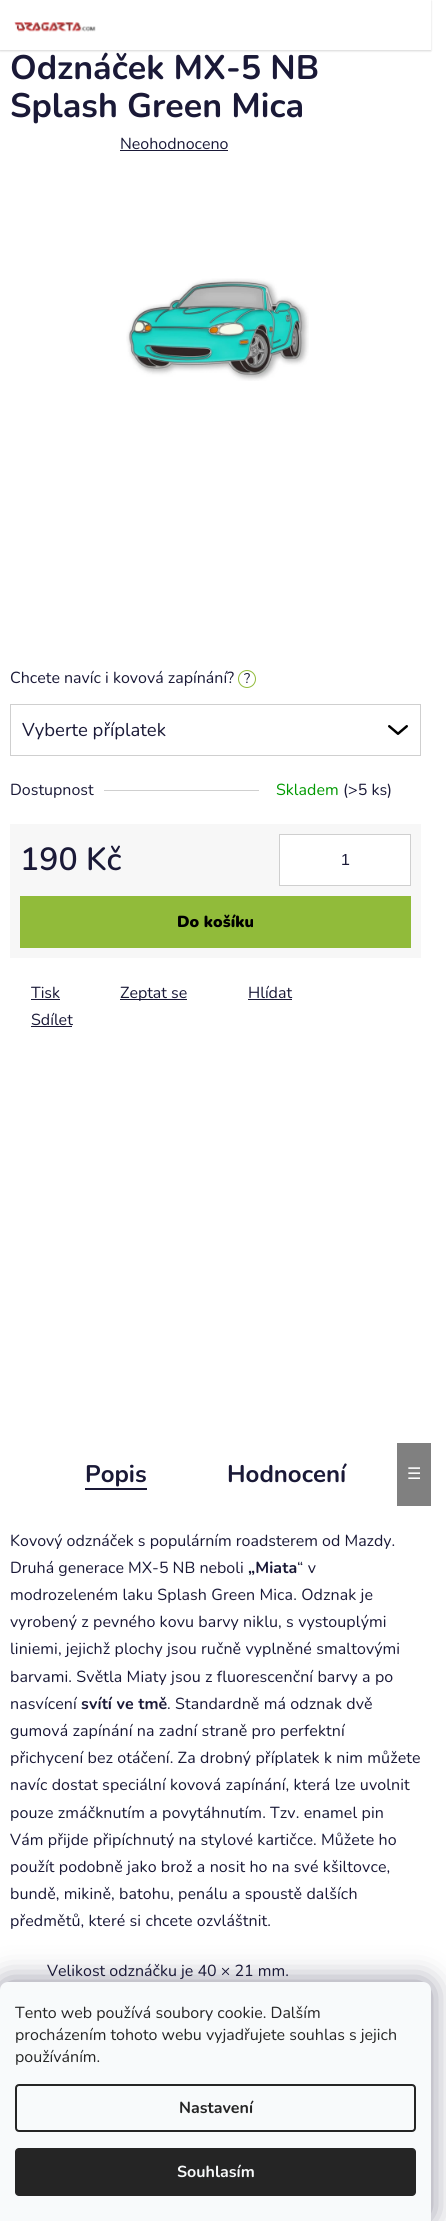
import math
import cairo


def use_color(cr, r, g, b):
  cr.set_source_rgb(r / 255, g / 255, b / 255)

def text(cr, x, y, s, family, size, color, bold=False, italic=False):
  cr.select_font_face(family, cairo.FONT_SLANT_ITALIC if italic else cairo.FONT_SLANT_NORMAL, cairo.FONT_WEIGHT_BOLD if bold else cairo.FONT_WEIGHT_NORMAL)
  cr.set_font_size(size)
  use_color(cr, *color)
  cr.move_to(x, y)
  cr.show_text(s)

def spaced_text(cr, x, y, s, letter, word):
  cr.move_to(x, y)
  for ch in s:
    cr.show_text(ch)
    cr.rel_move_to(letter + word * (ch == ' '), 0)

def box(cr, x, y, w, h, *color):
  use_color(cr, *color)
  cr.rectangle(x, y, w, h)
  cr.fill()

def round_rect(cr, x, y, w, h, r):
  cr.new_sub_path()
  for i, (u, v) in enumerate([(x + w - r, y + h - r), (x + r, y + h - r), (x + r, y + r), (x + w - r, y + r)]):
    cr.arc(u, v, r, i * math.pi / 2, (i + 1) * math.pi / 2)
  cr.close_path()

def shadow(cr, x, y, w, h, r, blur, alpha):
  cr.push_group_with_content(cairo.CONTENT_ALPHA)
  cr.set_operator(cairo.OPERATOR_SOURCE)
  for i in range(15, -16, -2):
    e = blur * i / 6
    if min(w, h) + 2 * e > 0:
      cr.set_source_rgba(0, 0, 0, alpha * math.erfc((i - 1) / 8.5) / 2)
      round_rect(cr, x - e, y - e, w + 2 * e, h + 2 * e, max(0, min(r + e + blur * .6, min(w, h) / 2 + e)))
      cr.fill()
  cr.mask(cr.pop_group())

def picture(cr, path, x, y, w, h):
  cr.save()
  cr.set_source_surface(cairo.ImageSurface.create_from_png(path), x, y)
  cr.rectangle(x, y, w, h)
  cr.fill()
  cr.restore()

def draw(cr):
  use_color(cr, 255, 255, 255)
  cr.paint()
  use_color(cr, 0, 0, 0)
  shadow(cr, 0, 1, 431, 50, 0, 1, 0.16)
  box(cr, 0, 0, 431, 50, 255, 255, 255)
  picture(cr, "img_01.png", 14, 22, 82, 10)
  box(cr, 120, 150, 108, 1, 26, 25, 55)
  picture(cr, "img_02.png", 126, 278, 183, 103)
  cr.arc(247, 679, 8.5, 0, 2 * math.pi)
  use_color(cr, 145, 187, 58)
  cr.set_line_width(1)
  cr.stroke()
  picture(cr, "img_03.png", 388, 725, 20, 10)
  cr.rectangle(10.5, 704.5, 410, 51)
  use_color(cr, 207, 207, 207)
  cr.stroke()
  box(cr, 104, 790, 155, 1, 207, 207, 207)
  box(cr, 10, 824, 411, 134, 247, 247, 247)
  use_color(cr, 255, 255, 255)
  cr.rectangle(279.5, 834.5, 131, 51)
  cr.fill_preserve()
  use_color(cr, 207, 207, 207)
  cr.stroke()
  box(cr, 20, 896, 391, 52, 145, 187, 58)
  box(cr, 31, 999, 29, 1, 26, 25, 55)
  box(cr, 120, 999, 67, 1, 26, 25, 55)
  box(cr, 248, 999, 44, 1, 26, 25, 55)
  box(cr, 31, 1026, 41, 1, 26, 25, 55)
  box(cr, 85, 1488, 62, 2, 26, 25, 55)
  box(cr, 397, 1443, 34, 63, 128, 128, 128)
  use_color(cr, 27, 25, 57)
  shadow(cr, 0, 1982, 431, 239, 8, 15, 0.5)
  use_color(cr, 248, 250, 251)
  cr.new_path()
  cr.move_to(8, 1982)
  cr.line_to(423, 1982)
  cr.curve_to(427.5, 1982, 431, 1985.5, 431, 1990)
  cr.line_to(431, 2221)
  cr.line_to(0, 2221)
  cr.line_to(0, 1990)
  cr.curve_to(0, 1985.5, 3.5, 1982, 8, 1982)
  cr.close_path()
  cr.fill()
  round_rect(cr, 16, 2085, 399, 46, 3)
  use_color(cr, 37, 37, 37)
  cr.set_line_width(2)
  cr.stroke()
  round_rect(cr, 15, 2148, 401, 48, 4)
  cr.fill()
  text(cr, 10, 79, "Odznáček MX-5 NB", "Nunito", 34, (26, 25, 55), bold=True)
  text(cr, 10, 117, "Splash Green Mica", "Nunito", 34, (26, 25, 55), bold=True)
  text(cr, 120, 149, "Neohodnoceno", "Nunito", 16, (26, 25, 55))
  text(cr, 10, 683, "Chcete navíc i kovová zapínání?", "Nunito", 16, (26, 25, 55))
  text(cr, 244, 683, "?", "Nunito", 14, (26, 25, 55))
  text(cr, 22, 736, "Vyberte příplatek", "Nunito", 18.5, (26, 25, 55))
  text(cr, 10, 795, "Dostupnost", "Nunito", 16, (26, 25, 55))
  text(cr, 276, 795, "Skladem", "Nunito", 16, (0, 153, 1))
  text(cr, 343, 795, "(>5 ks)", "Nunito", 16, (26, 25, 55))
  text(cr, 20, 870, "190 Kč", "Nunito SemiBold", 32, (26, 25, 55))
  text(cr, 341, 865, "1", "Liberation Sans", 16, (26, 25, 55))
  text(cr, 177, 927, "Do košíku", "Nunito Black", 16, (0, 0, 0))
  text(cr, 31, 998, "Tisk", "Nunito", 16, (26, 25, 55))
  text(cr, 120, 998, "Zeptat se", "Nunito", 16, (26, 25, 55))
  text(cr, 248, 998, "Hlídat", "Nunito", 16, (26, 25, 55))
  text(cr, 31, 1025, "Sdílet", "Nunito", 16, (26, 25, 55))
  text(cr, 85, 1482, "Popis", "Nunito", 24, (26, 25, 55), bold=True)
  text(cr, 227, 1482, "Hodnocení", "Nunito", 24, (26, 25, 55), bold=True)
  text(cr, 407, 1479, "☰", "DejaVu Sans", 16, (255, 255, 255))
  text(cr, 10, 1546, "Kovový odznáček s populárním roadsterem od Mazdy.", "Nunito", 16, (26, 25, 55))
  text(cr, 10, 1573, "Druhá generace MX-5 NB neboli", "Nunito", 16, (26, 25, 55))
  cr.select_font_face("Nunito", cairo.FONT_SLANT_NORMAL, cairo.FONT_WEIGHT_BOLD)
  spaced_text(cr, 248, 1573, "„Miata", 0.1, 0)
  cr.select_font_face("Nunito")
  spaced_text(cr, 297, 1573, "“ v", 0.1, 0)
  spaced_text(cr, 10, 1600, "modrozeleném laku Splash Green Mica. Odznak je", 0.1, 0)
  spaced_text(cr, 10, 1627, "vyrobený z pevného kovu barvy niklu, s vystouplými", 0.1, 0)
  spaced_text(cr, 10, 1654, "liniemi, jejichž plochy jsou ručně vyplněné smaltovými", 0.1, 0)
  spaced_text(cr, 10, 1682, "barvami. Světla Miaty jsou z fluorescenční barvy a po", 0.1, 0)
  spaced_text(cr, 10, 1709, "nasvícení", 0.1, 0)
  cr.select_font_face("Nunito", cairo.FONT_SLANT_NORMAL, cairo.FONT_WEIGHT_BOLD)
  spaced_text(cr, 81, 1709, "svítí ve tmě", 0.1, 0)
  cr.select_font_face("Nunito")
  spaced_text(cr, 167, 1709, ". Standardně má odznak dvě", 0.1, 0)
  spaced_text(cr, 10, 1736, "gumová zapínání na zadní straně pro perfektní", 0.1, 0)
  spaced_text(cr, 10, 1763, "přichycení bez otáčení. Za drobný příplatek k nim můžete", 0.1, 0)
  spaced_text(cr, 10, 1790, "navíc dostat speciální kovová zapínání, která lze uvolnit", 0.1, 0)
  spaced_text(cr, 10, 1818, "pouze zmáčknutím a povytáhnutím. Tzv. enamel pin", 0.1, 0)
  spaced_text(cr, 10, 1845, "Vám přijde připíchnutý na stylové kartičce. Můžete ho", 0.1, 0)
  spaced_text(cr, 10, 1872, "použít podobně jako brož a nosit ho na své kšiltovce,", 0.1, 0)
  spaced_text(cr, 10, 1899, "bundě, mikině, batohu, penálu a spoustě dalších", 0.1, 0)
  spaced_text(cr, 10, 1926, "předmětů, které si chcete ozvláštnit.", 0.1, 0)
  text(cr, 47, 1976, "Velikost odznáčku je 40 × 21 mm.", "Nunito", 16, (26, 25, 55))
  text(cr, 15, 2018, "Tento web používá soubory cookie. Dalším", "Nunito", 16, (37, 37, 37))
  text(cr, 15, 2040, "procházením tohoto webu vyjadřujete souhlas s jejich", "Nunito", 16, (37, 37, 37))
  text(cr, 15, 2062, "používáním.", "Nunito", 16, (37, 37, 37))
  text(cr, 179, 2113, "Nastavení", "Nunito", 16, (37, 37, 37), bold=True)
  text(cr, 177, 2177, "Souhlasím", "Nunito", 16, (248, 250, 251), bold=True)


surface = cairo.ImageSurface(cairo.FORMAT_RGB24, 446, 2221)
cr = cairo.Context(surface)
options = cairo.FontOptions()
options.set_hint_metrics(cairo.HINT_METRICS_OFF)
options.set_hint_style(cairo.HINT_STYLE_NONE)
cr.set_font_options(options)
cr.set_miter_limit(4)
draw(cr)
surface.write_to_png("out.png")
